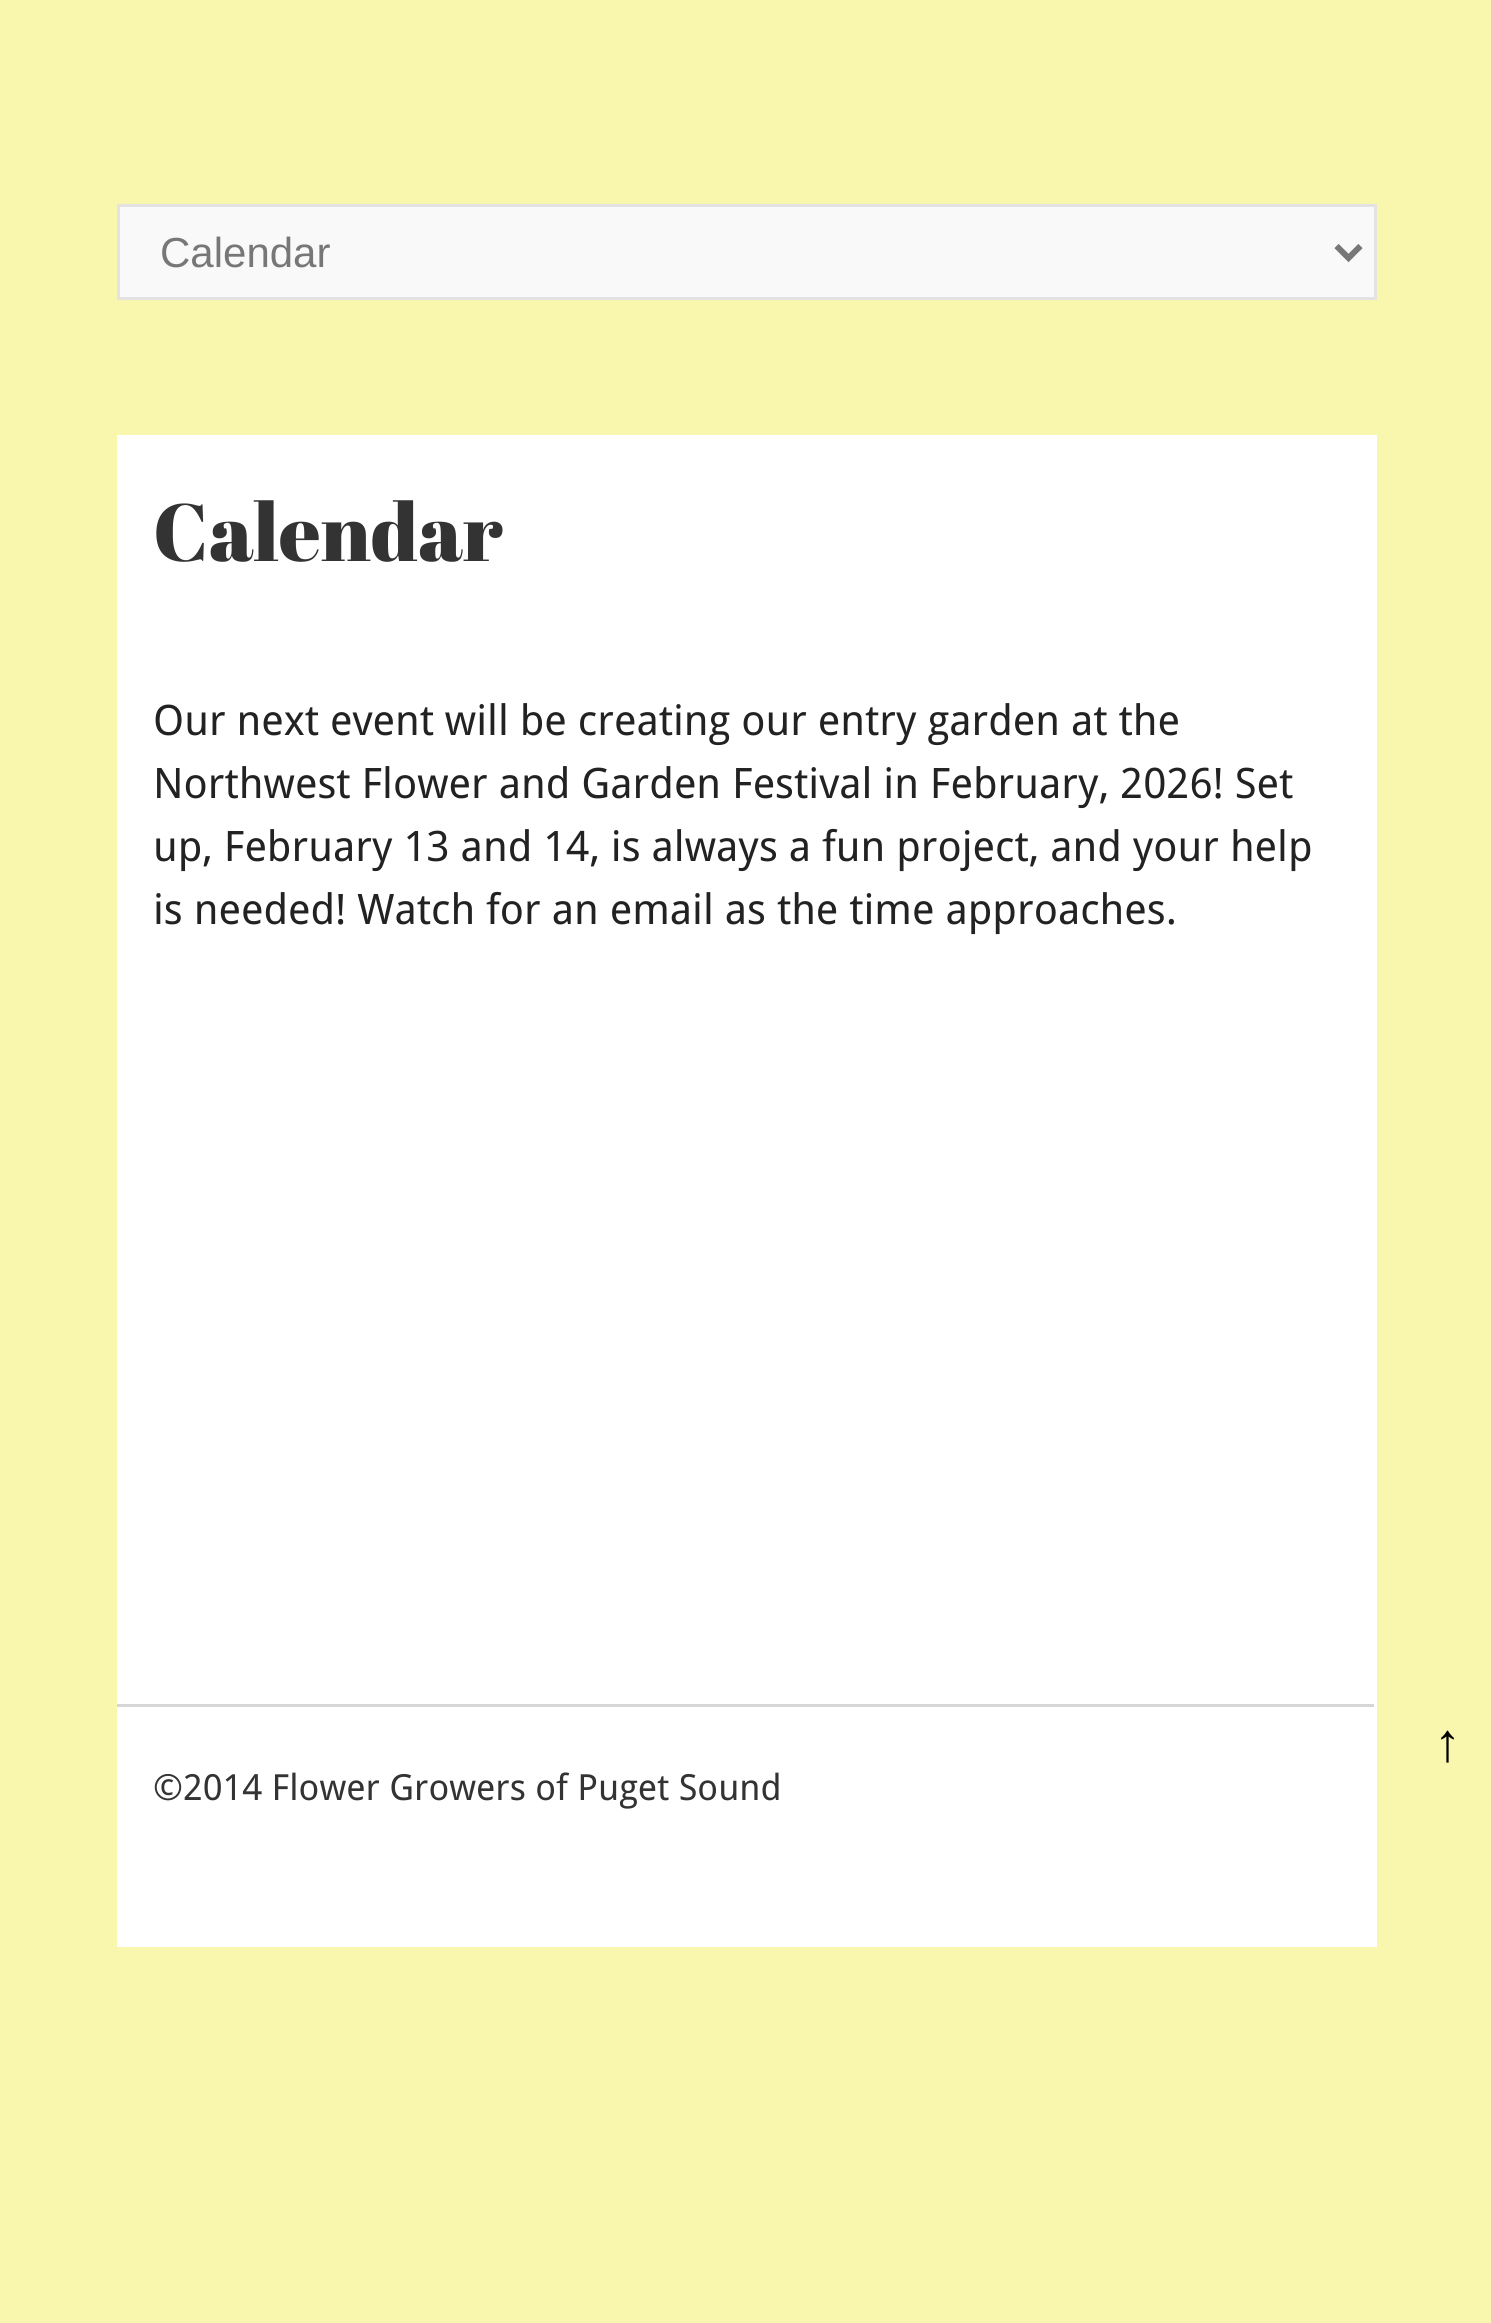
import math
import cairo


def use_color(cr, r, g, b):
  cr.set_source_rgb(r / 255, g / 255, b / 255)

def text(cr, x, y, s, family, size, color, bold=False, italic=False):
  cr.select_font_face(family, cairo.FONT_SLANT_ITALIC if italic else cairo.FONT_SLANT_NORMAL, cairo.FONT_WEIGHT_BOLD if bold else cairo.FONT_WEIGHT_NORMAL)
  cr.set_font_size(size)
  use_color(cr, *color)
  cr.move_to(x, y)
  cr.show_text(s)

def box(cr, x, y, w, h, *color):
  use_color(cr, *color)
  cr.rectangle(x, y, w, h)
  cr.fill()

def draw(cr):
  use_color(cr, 249, 247, 173)
  cr.paint()
  use_color(cr, 249, 249, 249)
  cr.rectangle(118.5, 205.5, 1257, 93)
  cr.fill_preserve()
  use_color(cr, 227, 227, 227)
  cr.set_line_width(3)
  cr.stroke()
  cr.new_path()
  cr.move_to(1336.5, 246)
  cr.line_to(1348.5, 258)
  cr.line_to(1360.5, 246)
  use_color(cr, 119, 119, 119)
  cr.set_line_width(6)
  cr.stroke()
  box(cr, 117, 435, 1260, 1512, 255, 255, 255)
  box(cr, 117, 1704, 1257, 3, 214, 214, 214)
  text(cr, 160, 267, "Calendar", "Liberation Sans", 42, (119, 119, 119))
  text(cr, 153, 561, "Calendar", "Abril Fatface", 81, (51, 51, 51))
  text(cr, 153, 735, "Our next event will be creating our entry garden at the", "Droid Sans", 42, (34, 34, 34))
  text(cr, 153, 798, "Northwest Flower and Garden Festival in February, 2026! Set", "Droid Sans", 42, (34, 34, 34))
  text(cr, 153, 861, "up, February 13 and 14, is always a fun project, and your help", "Droid Sans", 42, (34, 34, 34))
  text(cr, 153, 924, "is needed! Watch for an email as the time approaches.", "Droid Sans", 42, (34, 34, 34))
  text(cr, 153, 1800, "©2014 Flower Growers of Puget Sound", "Droid Sans", 36, (51, 51, 51))
  text(cr, 1434, 1761, "↑", "Liberation Sans", 54, (0, 0, 0))


surface = cairo.ImageSurface(cairo.FORMAT_RGB24, 1491, 2323)
cr = cairo.Context(surface)
options = cairo.FontOptions()
options.set_hint_metrics(cairo.HINT_METRICS_OFF)
options.set_hint_style(cairo.HINT_STYLE_NONE)
cr.set_font_options(options)
cr.set_miter_limit(4)
draw(cr)
surface.write_to_png("out.png")
